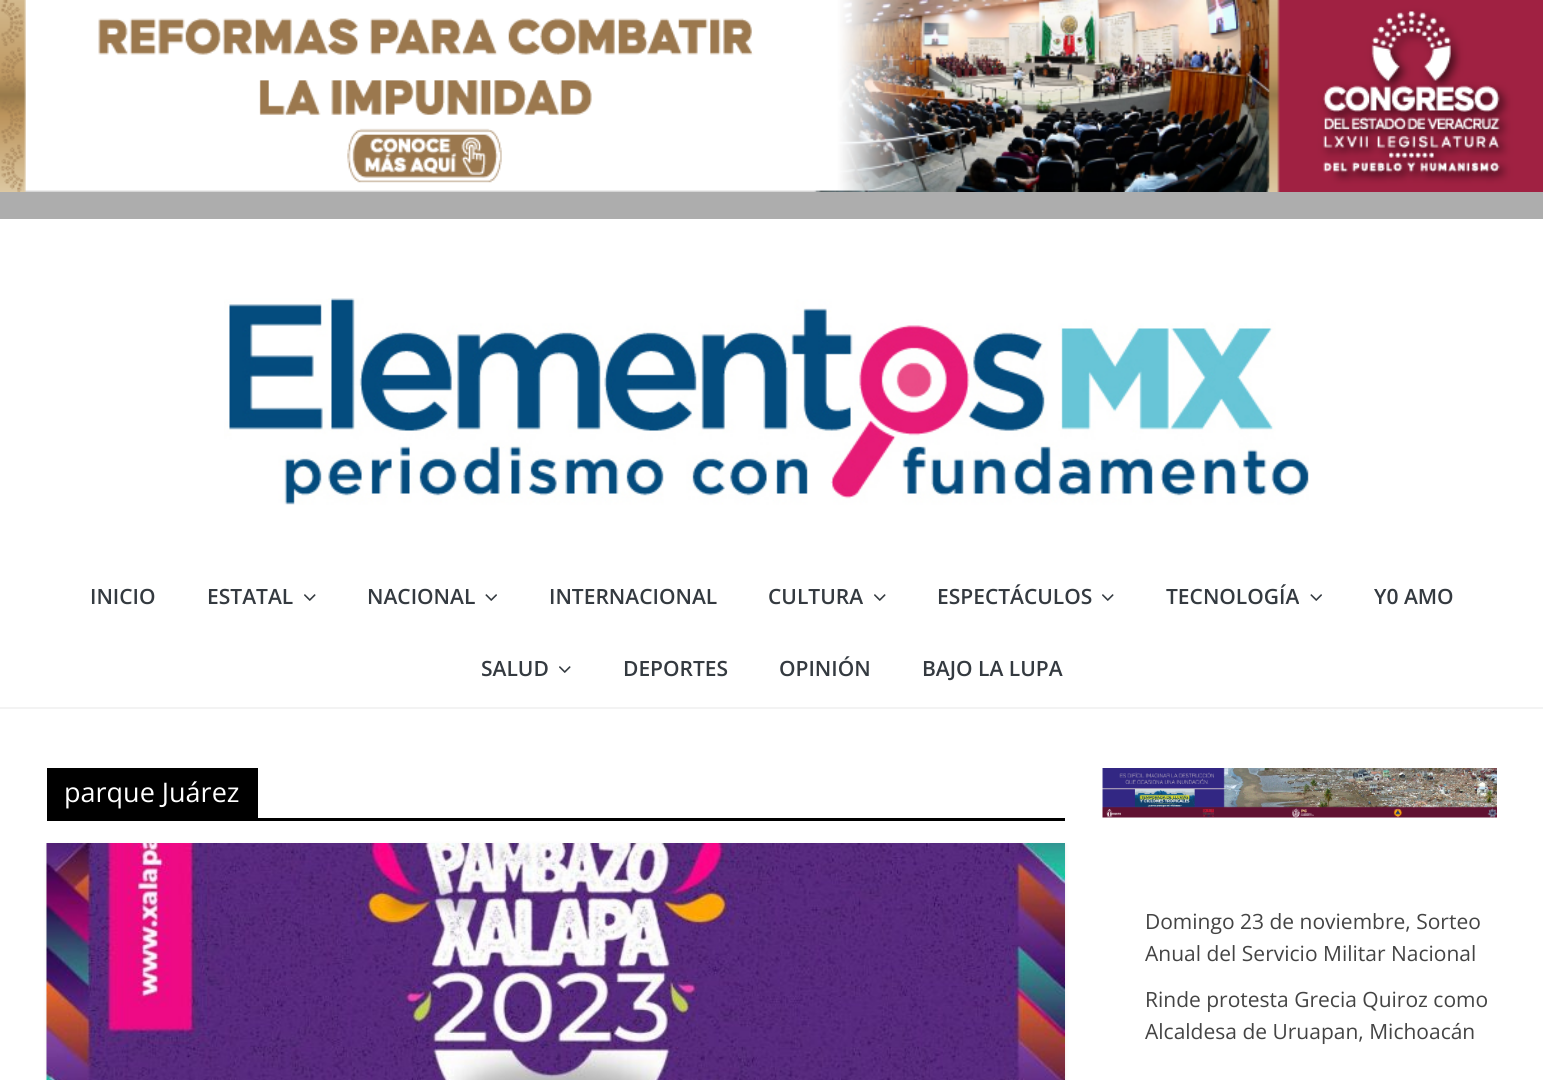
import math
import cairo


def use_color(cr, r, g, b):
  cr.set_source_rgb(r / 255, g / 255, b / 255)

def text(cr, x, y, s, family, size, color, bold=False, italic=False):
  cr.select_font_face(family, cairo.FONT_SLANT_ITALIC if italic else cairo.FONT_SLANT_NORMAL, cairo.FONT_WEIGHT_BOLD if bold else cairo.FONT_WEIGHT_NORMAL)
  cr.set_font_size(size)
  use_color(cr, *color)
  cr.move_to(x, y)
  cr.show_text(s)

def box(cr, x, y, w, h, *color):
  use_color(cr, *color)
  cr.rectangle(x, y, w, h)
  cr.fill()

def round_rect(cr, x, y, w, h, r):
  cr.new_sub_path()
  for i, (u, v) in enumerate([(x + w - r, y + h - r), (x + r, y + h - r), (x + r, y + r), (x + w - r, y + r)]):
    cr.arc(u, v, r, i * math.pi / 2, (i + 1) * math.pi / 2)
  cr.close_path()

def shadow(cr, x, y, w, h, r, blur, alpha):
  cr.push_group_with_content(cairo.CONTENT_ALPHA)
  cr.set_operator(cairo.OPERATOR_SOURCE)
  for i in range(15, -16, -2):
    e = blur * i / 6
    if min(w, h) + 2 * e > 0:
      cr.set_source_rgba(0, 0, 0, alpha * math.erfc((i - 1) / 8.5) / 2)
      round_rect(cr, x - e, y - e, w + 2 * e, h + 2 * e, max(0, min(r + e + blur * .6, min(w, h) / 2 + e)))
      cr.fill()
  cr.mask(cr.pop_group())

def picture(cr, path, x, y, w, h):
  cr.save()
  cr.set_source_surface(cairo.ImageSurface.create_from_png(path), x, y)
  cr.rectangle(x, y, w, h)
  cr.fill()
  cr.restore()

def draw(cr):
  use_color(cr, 173, 173, 173)
  cr.paint()
  picture(cr, "img_01.png", 0, 0, 1543, 192)
  box(cr, 0, 219, 1543, 488, 255, 255, 255)
  picture(cr, "img_02.png", 224, 298, 1085, 207)
  box(cr, 0, 707, 1543, 2, 243, 243, 243)
  picture(cr, "img_03.png", 304, 594, 12, 7)
  picture(cr, "img_04.png", 485, 594, 12, 7)
  picture(cr, "img_03.png", 874, 594, 12, 7)
  picture(cr, "img_03.png", 1102, 594, 12, 7)
  picture(cr, "img_04.png", 1310, 594, 12, 7)
  picture(cr, "img_03.png", 559, 666, 12, 7)
  box(cr, 0, 709, 1543, 371, 255, 255, 255)
  box(cr, 47, 818, 1018, 3, 0, 0, 0)
  box(cr, 47, 768, 211, 50, 0, 0, 0)
  use_color(cr, 0, 0, 0)
  shadow(cr, 47, 845, 1018, 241, 0, 2, 0.1)
  picture(cr, "img_05.png", 46, 843, 1019, 237)
  picture(cr, "img_06.png", 1102, 768, 395, 50)
  text(cr, 90, 604, "INICIO", "Open Sans SemiBold", 21, (52, 58, 64))
  text(cr, 207, 604, "ESTATAL", "Open Sans SemiBold", 21, (52, 58, 64))
  text(cr, 367, 604, "NACIONAL", "Open Sans SemiBold", 21, (52, 58, 64))
  text(cr, 549, 604, "INTERNACIONAL", "Open Sans SemiBold", 21, (52, 58, 64))
  text(cr, 768, 604, "CULTURA", "Open Sans SemiBold", 21, (52, 58, 64))
  text(cr, 937, 604, "ESPECTÁCULOS", "Open Sans SemiBold", 21, (52, 58, 64))
  text(cr, 1166, 604, "TECNOLOGÍA", "Open Sans SemiBold", 21, (52, 58, 64))
  text(cr, 1374, 604, "Y0 AMO", "Open Sans SemiBold", 21, (52, 58, 64))
  text(cr, 481, 676, "SALUD", "Open Sans SemiBold", 21, (52, 58, 64))
  text(cr, 623, 676, "DEPORTES", "Open Sans SemiBold", 21, (52, 58, 64))
  text(cr, 779, 676, "OPINIÓN", "Open Sans SemiBold", 21, (52, 58, 64))
  text(cr, 922, 676, "BAJO LA LUPA", "Open Sans SemiBold", 21, (52, 58, 64))
  text(cr, 64, 802, "parque Juárez", "Open Sans", 27, (255, 255, 255))
  text(cr, 1145, 929, "Domingo 23 de noviembre, Sorteo", "Open Sans", 21, (68, 68, 68))
  text(cr, 1145, 961, "Anual del Servicio Militar Nacional", "Open Sans", 21, (68, 68, 68))
  text(cr, 1145, 1007, "Rinde protesta Grecia Quiroz como", "Open Sans", 21, (68, 68, 68))
  text(cr, 1145, 1039, "Alcaldesa de Uruapan, Michoacán", "Open Sans", 21, (68, 68, 68))


surface = cairo.ImageSurface(cairo.FORMAT_RGB24, 1543, 1080)
cr = cairo.Context(surface)
options = cairo.FontOptions()
options.set_hint_metrics(cairo.HINT_METRICS_OFF)
options.set_hint_style(cairo.HINT_STYLE_NONE)
cr.set_font_options(options)
cr.set_miter_limit(4)
draw(cr)
surface.write_to_png("out.png")
